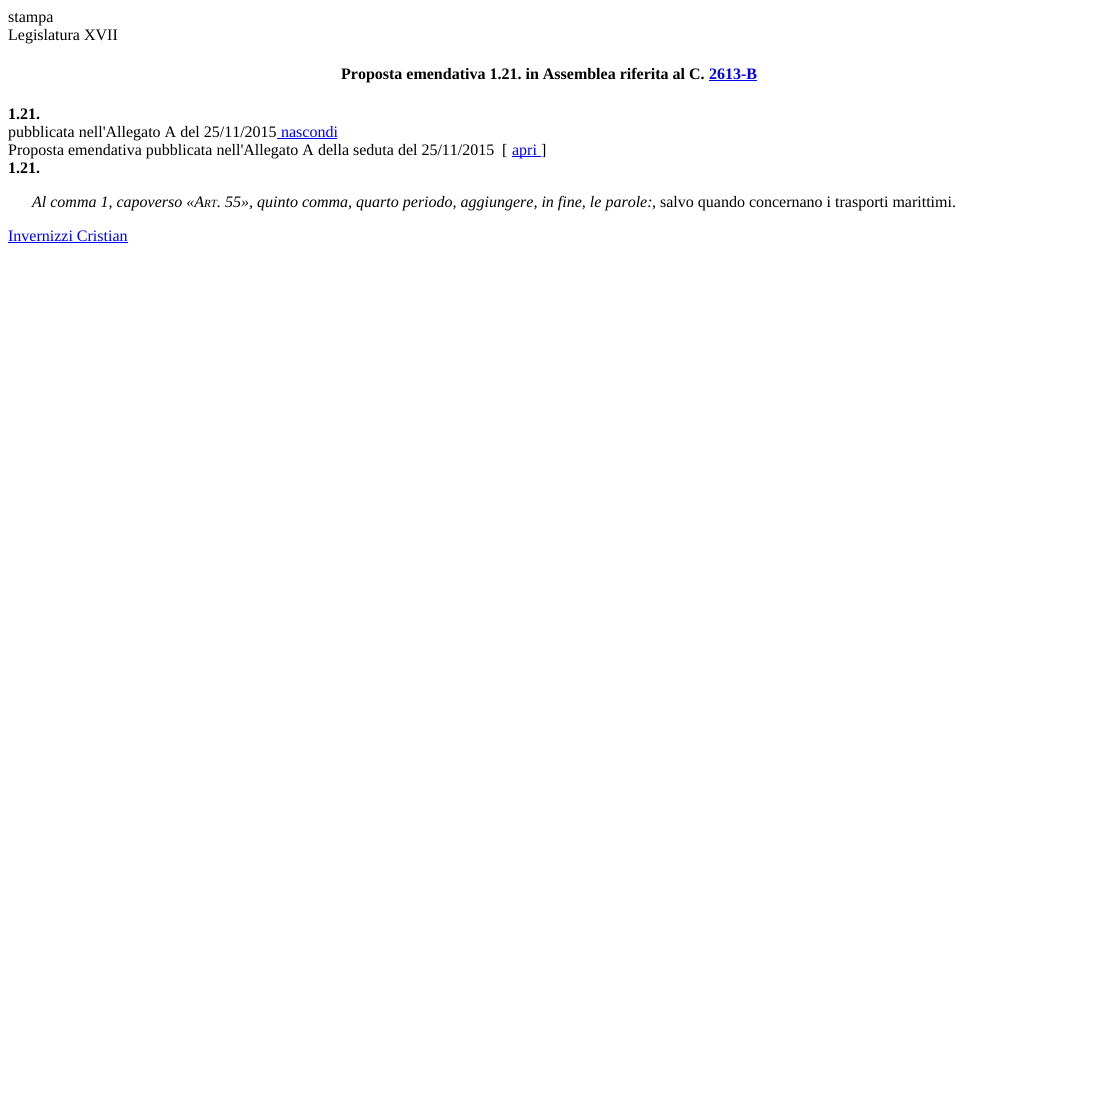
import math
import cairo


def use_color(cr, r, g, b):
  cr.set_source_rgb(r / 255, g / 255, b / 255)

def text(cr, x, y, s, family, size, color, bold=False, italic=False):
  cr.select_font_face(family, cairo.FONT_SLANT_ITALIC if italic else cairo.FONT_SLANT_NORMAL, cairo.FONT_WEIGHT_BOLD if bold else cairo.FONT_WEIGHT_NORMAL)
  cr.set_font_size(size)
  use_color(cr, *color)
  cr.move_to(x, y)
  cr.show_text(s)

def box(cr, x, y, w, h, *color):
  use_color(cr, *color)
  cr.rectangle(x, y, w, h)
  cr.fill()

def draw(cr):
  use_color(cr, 255, 255, 255)
  cr.paint()
  box(cr, 709, 80, 48, 1, 0, 0, 238)
  box(cr, 277, 138, 60, 1, 0, 0, 238)
  box(cr, 512, 156, 29, 1, 0, 0, 238)
  box(cr, 8, 242, 120, 1, 0, 0, 238)
  text(cr, 8, 22, "stampa", "Liberation Serif", 16, (0, 0, 0))
  text(cr, 8, 40, "Legislatura XVII", "Liberation Serif", 16, (0, 0, 0))
  text(cr, 341, 79, "Proposta emendativa 1.21. in Assemblea riferita al C.", "Liberation Serif", 16, (0, 0, 0), bold=True)
  text(cr, 709, 79, "2613-B", "Liberation Serif", 16, (0, 0, 238), bold=True)
  text(cr, 8, 119, "1.21.", "Liberation Serif", 16, (0, 0, 0), bold=True)
  text(cr, 8, 137, "pubblicata nell'Allegato A del 25/11/2015", "Liberation Serif", 16, (0, 0, 0))
  text(cr, 281, 137, "nascondi", "Liberation Serif", 16, (0, 0, 238))
  text(cr, 8, 155, "Proposta emendativa pubblicata nell'Allegato A della seduta del 25/11/2015", "Liberation Serif", 16, (0, 0, 0))
  text(cr, 502, 155, "[", "Liberation Serif", 16, (0, 0, 0))
  text(cr, 512, 155, "apri", "Liberation Serif", 16, (0, 0, 238))
  text(cr, 541, 155, "]", "Liberation Serif", 16, (0, 0, 0))
  text(cr, 8, 173, "1.21.", "Liberation Serif", 16, (0, 0, 0), bold=True)
  text(cr, 32, 207, "Al comma 1, capoverso «A", "Liberation Serif", 16, (0, 0, 0), italic=True)
  text(cr, 204, 207, "RT", "Liberation Serif", 11, (0, 0, 0), italic=True)
  text(cr, 217, 207, ". 55», quinto comma, quarto periodo, aggiungere, in fine, le parole:", "Liberation Serif", 16, (0, 0, 0), italic=True)
  text(cr, 652, 207, ", salvo quando concernano i trasporti marittimi.", "Liberation Serif", 16, (0, 0, 0))
  text(cr, 8, 241, "Invernizzi Cristian", "Liberation Serif", 16, (0, 0, 238))


surface = cairo.ImageSurface(cairo.FORMAT_RGB24, 1098, 1098)
cr = cairo.Context(surface)
options = cairo.FontOptions()
options.set_hint_metrics(cairo.HINT_METRICS_OFF)
options.set_hint_style(cairo.HINT_STYLE_NONE)
cr.set_font_options(options)
cr.set_miter_limit(4)
draw(cr)
surface.write_to_png("out.png")
